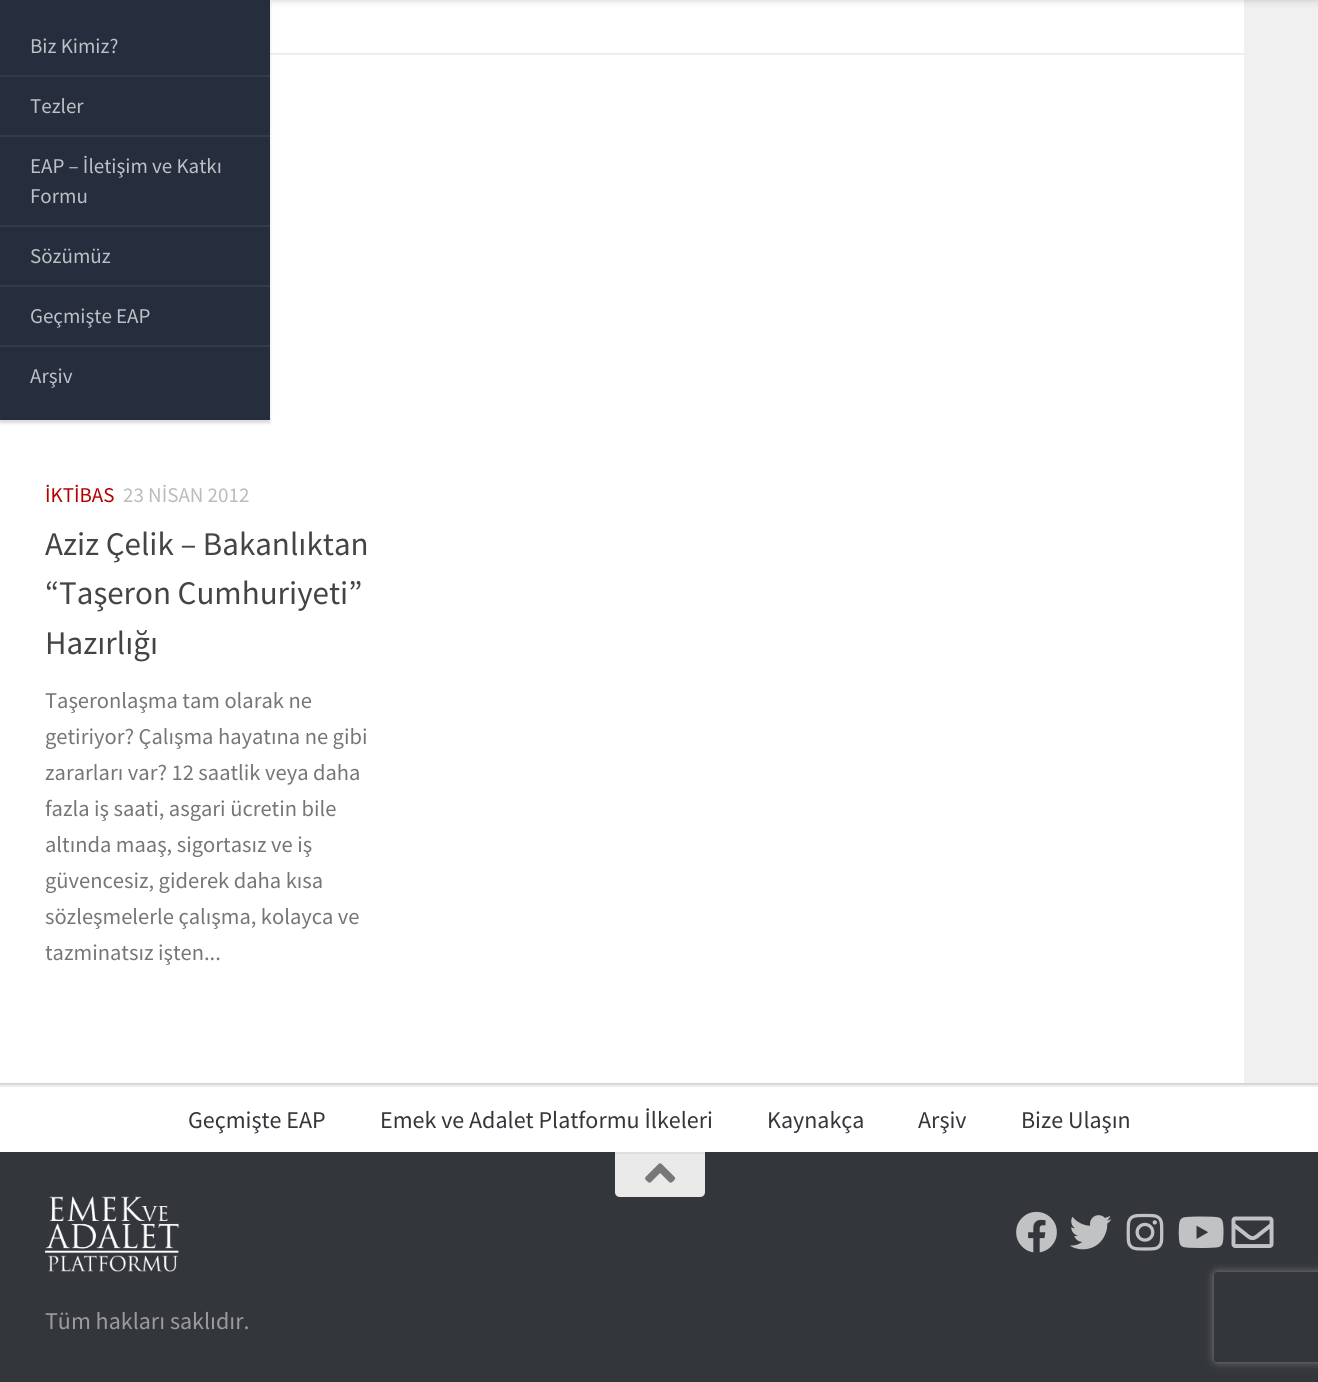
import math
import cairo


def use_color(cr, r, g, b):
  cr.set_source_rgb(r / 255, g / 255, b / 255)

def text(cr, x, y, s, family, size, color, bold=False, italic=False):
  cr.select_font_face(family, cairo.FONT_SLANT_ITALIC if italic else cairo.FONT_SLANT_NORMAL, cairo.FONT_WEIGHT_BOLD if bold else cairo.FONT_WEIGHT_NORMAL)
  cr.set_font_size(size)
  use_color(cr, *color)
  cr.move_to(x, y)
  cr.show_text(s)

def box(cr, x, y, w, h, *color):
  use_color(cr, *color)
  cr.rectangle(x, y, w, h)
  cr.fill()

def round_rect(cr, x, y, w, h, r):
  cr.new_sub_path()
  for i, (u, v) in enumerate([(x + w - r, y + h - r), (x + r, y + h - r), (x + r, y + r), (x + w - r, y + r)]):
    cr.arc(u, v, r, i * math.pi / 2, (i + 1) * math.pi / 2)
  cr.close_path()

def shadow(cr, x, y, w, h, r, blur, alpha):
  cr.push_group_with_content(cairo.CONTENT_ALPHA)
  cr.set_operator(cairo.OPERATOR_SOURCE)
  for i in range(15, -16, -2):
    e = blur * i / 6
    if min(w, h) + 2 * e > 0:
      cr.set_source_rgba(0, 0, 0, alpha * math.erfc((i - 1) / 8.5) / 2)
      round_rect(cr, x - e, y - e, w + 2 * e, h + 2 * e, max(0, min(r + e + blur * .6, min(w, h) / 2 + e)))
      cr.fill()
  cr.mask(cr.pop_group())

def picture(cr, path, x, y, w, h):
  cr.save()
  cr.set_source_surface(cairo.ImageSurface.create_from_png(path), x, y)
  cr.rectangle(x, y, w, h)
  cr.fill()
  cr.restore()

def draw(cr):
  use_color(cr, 234, 234, 234)
  cr.paint()
  use_color(cr, 0, 0, 0)
  shadow(cr, 0, -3, 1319, 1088, 0, 1, 0.1)
  box(cr, 0, 0, 1244, 1083, 255, 255, 255)
  box(cr, 1244, 0, 74, 1083, 240, 240, 240)
  use_color(cr, 0, 0, 0)
  shadow(cr, 0, -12, 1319, 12, 0, 4, 0.2)
  box(cr, 270, 53, 974, 2, 238, 238, 238)
  use_color(cr, 0, 0, 0)
  shadow(cr, 0, 3, 270, 420, 0, 1.5, 0.15)
  box(cr, 0, 0, 270, 420, 38, 46, 62)
  box(cr, 0, 75, 270, 2, 51, 59, 74)
  box(cr, 0, 135, 270, 2, 51, 59, 74)
  box(cr, 0, 225, 270, 2, 51, 59, 74)
  box(cr, 0, 285, 270, 2, 51, 59, 74)
  box(cr, 0, 345, 270, 2, 51, 59, 74)
  box(cr, 0, 1087, 1318, 65, 255, 255, 255)
  box(cr, 0, 1085, 1318, 2, 238, 238, 238)
  box(cr, 0, 1152, 1318, 230, 51, 54, 59)
  use_color(cr, 234, 234, 234)
  cr.new_path()
  cr.move_to(615, 1152)
  cr.line_to(705, 1152)
  cr.line_to(705, 1192)
  cr.curve_to(705, 1195, 703, 1197, 700, 1197)
  cr.line_to(620, 1197)
  cr.curve_to(617, 1197, 615, 1195, 615, 1192)
  cr.close_path()
  cr.fill()
  box(cr, 615, 1152, 90, 2, 222, 222, 222)
  picture(cr, "img_01.png", 645, 1163, 31, 20)
  picture(cr, "img_02.png", 1016, 1211, 41, 42)
  picture(cr, "img_03.png", 1069, 1215, 43, 35)
  picture(cr, "img_04.png", 1126, 1213, 38, 38)
  picture(cr, "img_05.png", 1178, 1216, 46, 32)
  picture(cr, "img_06.png", 1231, 1216, 43, 32)
  picture(cr, "img_07.png", 45, 1196, 134, 76)
  cr.save()
  cr.set_fill_rule(cairo.FILL_RULE_EVEN_ODD)
  cr.new_path()
  cr.move_to(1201, 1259)
  cr.line_to(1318, 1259)
  cr.line_to(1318, 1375)
  cr.line_to(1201, 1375)
  cr.close_path()
  cr.move_to(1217, 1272)
  cr.line_to(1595, 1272)
  cr.curve_to(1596.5, 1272, 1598, 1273.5, 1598, 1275)
  cr.line_to(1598, 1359)
  cr.curve_to(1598, 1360.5, 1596.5, 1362, 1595, 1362)
  cr.line_to(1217, 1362)
  cr.curve_to(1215.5, 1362, 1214, 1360.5, 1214, 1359)
  cr.line_to(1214, 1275)
  cr.curve_to(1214, 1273.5, 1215.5, 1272, 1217, 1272)
  cr.close_path()
  cr.clip()
  use_color(cr, 128, 128, 128)
  shadow(cr, 1214, 1272, 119, 90, 3, 4, 1)
  cr.restore()
  text(cr, 30, 53, "Biz Kimiz?", "Source Sans Pro", 21, (190, 192, 197))
  text(cr, 30, 113, "Tezler", "Source Sans Pro", 21, (190, 192, 197))
  text(cr, 30, 173, "EAP – İletişim ve Katkı", "Source Sans Pro", 21, (190, 192, 197))
  text(cr, 30, 203, "Formu", "Source Sans Pro", 21, (190, 192, 197))
  text(cr, 30, 263, "Sözümüz", "Source Sans Pro", 21, (190, 192, 197))
  text(cr, 30, 323, "Geçmişte EAP", "Source Sans Pro", 21, (190, 192, 197))
  text(cr, 30, 383, "Arşiv", "Source Sans Pro", 21, (190, 192, 197))
  text(cr, 45, 502, "İKTİBAS", "Source Sans Pro", 21, (178, 2, 0))
  text(cr, 123, 502, "23 NİSAN 2012", "Source Sans Pro", 21, (187, 187, 187))
  text(cr, 45, 555, "Aziz Çelik – Bakanlıktan", "Source Sans Pro", 33, (68, 68, 68))
  text(cr, 45, 604, "“Taşeron Cumhuriyeti”", "Source Sans Pro", 33, (68, 68, 68))
  text(cr, 45, 654, "Hazırlığı", "Source Sans Pro", 33, (68, 68, 68))
  text(cr, 45, 708, "Taşeronlaşma tam olarak ne", "Source Sans Pro", 22.5, (118, 118, 118))
  text(cr, 45, 744, "getiriyor? Çalışma hayatına ne gibi", "Source Sans Pro", 22.5, (118, 118, 118))
  text(cr, 45, 780, "zararları var? 12 saatlik veya daha", "Source Sans Pro", 22.5, (118, 118, 118))
  text(cr, 45, 816, "fazla iş saati, asgari ücretin bile", "Source Sans Pro", 22.5, (118, 118, 118))
  text(cr, 45, 852, "altında maaş, sigortasız ve iş", "Source Sans Pro", 22.5, (118, 118, 118))
  text(cr, 45, 888, "güvencesiz, giderek daha kısa", "Source Sans Pro", 22.5, (118, 118, 118))
  text(cr, 45, 924, "sözleşmelerle çalışma, kolayca ve", "Source Sans Pro", 22.5, (118, 118, 118))
  text(cr, 45, 960, "tazminatsız işten...", "Source Sans Pro", 22.5, (118, 118, 118))
  text(cr, 188, 1128, "Geçmişte EAP", "Source Sans Pro", 24, (51, 54, 59))
  text(cr, 380, 1128, "Emek ve Adalet Platformu İlkeleri", "Source Sans Pro", 24, (51, 54, 59))
  text(cr, 767, 1128, "Kaynakça", "Source Sans Pro", 24, (51, 54, 59))
  text(cr, 918, 1128, "Arşiv", "Source Sans Pro", 24, (51, 54, 59))
  text(cr, 1021, 1128, "Bize Ulaşın", "Source Sans Pro", 24, (51, 54, 59))
  text(cr, 45, 1329, "Tüm hakları saklıdır.", "Source Sans Pro", 24, (153, 155, 157))


surface = cairo.ImageSurface(cairo.FORMAT_RGB24, 1318, 1382)
cr = cairo.Context(surface)
options = cairo.FontOptions()
options.set_hint_metrics(cairo.HINT_METRICS_OFF)
options.set_hint_style(cairo.HINT_STYLE_NONE)
cr.set_font_options(options)
cr.set_miter_limit(4)
draw(cr)
surface.write_to_png("out.png")
